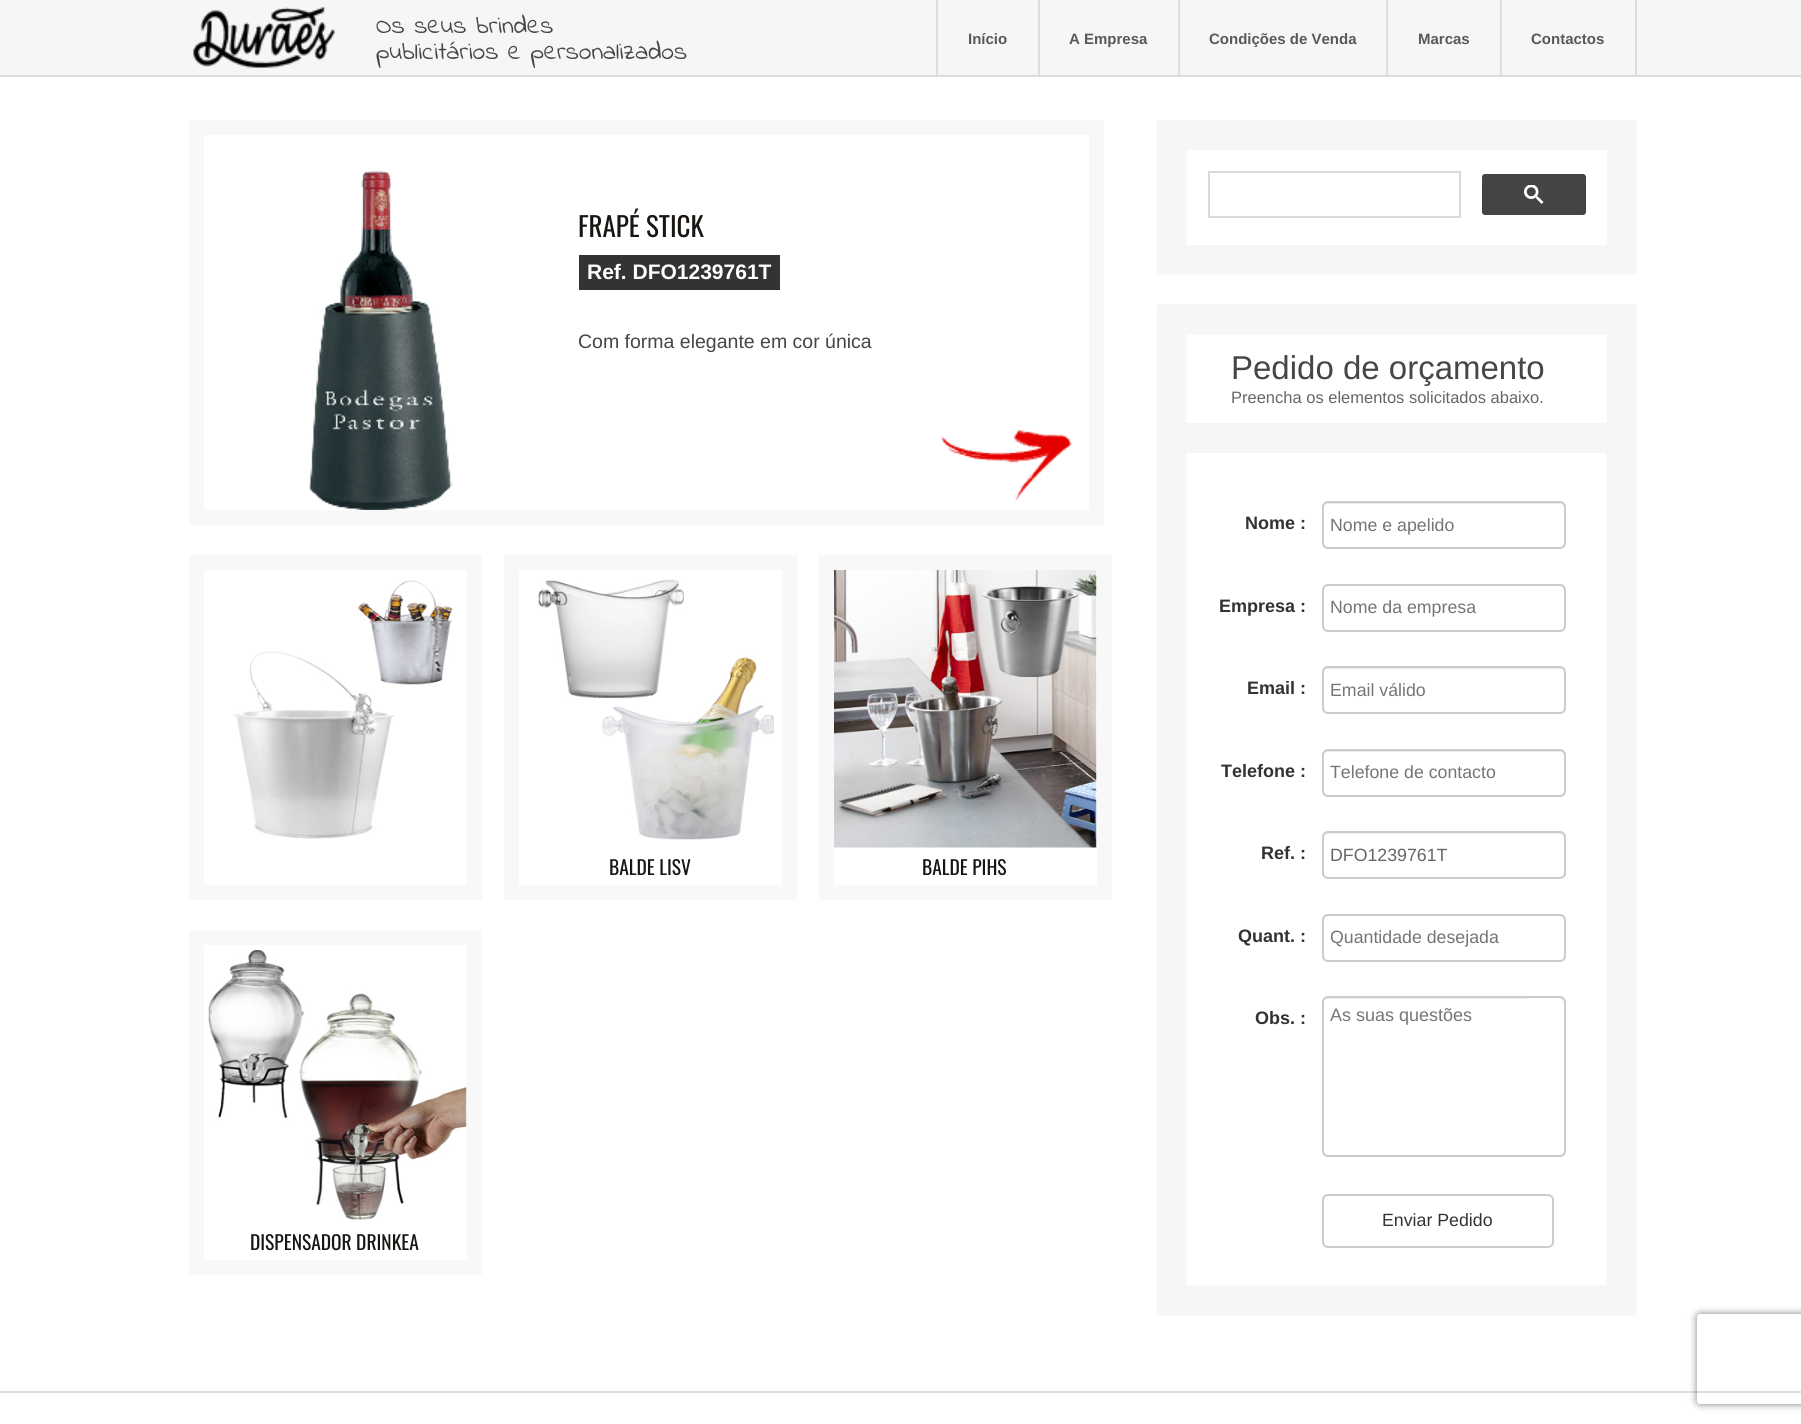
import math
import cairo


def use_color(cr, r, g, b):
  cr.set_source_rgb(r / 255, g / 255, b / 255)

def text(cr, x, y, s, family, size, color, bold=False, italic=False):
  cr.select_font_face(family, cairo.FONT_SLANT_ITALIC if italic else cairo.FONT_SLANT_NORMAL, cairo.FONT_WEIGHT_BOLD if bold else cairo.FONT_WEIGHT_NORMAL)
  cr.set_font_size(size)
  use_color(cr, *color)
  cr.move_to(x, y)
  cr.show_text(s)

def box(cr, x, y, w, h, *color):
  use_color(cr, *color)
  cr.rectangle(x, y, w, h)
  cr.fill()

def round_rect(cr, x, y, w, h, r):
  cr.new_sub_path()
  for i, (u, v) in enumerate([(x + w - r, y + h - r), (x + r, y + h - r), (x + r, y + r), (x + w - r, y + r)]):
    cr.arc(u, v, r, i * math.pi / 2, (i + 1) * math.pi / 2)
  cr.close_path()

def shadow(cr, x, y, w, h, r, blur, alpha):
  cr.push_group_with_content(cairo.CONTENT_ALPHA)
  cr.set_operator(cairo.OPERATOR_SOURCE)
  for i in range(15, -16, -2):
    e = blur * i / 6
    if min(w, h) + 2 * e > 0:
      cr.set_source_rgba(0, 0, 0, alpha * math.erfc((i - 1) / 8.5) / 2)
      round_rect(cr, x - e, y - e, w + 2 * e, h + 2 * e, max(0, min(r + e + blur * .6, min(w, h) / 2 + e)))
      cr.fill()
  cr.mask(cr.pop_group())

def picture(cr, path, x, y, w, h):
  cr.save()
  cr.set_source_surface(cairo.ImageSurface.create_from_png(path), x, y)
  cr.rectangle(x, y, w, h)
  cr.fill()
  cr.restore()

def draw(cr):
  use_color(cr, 255, 255, 255)
  cr.paint()
  box(cr, 0, 0, 1801, 75, 246, 246, 246)
  box(cr, 0, 75, 1801, 2, 221, 221, 221)
  picture(cr, "img_01.png", 193, 7, 142, 61)
  box(cr, 1038, 0, 2, 75, 221, 221, 221)
  box(cr, 936, 0, 2, 75, 221, 221, 221)
  box(cr, 1178, 0, 2, 75, 221, 221, 221)
  box(cr, 1386, 0, 2, 75, 221, 221, 221)
  box(cr, 1500, 0, 2, 75, 221, 221, 221)
  box(cr, 1635, 0, 2, 75, 221, 221, 221)
  picture(cr, "img_02.png", 940, 430, 132, 70)
  cr.rectangle(196.5, 127.5, 900, 390)
  use_color(cr, 248, 248, 248)
  cr.set_line_width(15)
  cr.stroke()
  picture(cr, "img_03.png", 308, 170, 144, 340)
  box(cr, 579, 255, 201, 35, 51, 51, 51)
  cr.rectangle(196.5, 562.5, 278, 330)
  use_color(cr, 248, 248, 248)
  cr.stroke()
  picture(cr, "img_04.png", 234, 580, 219, 259)
  cr.rectangle(511.5, 562.5, 278, 330)
  cr.stroke()
  picture(cr, "img_05.png", 538, 579, 236, 261)
  cr.rectangle(826.5, 562.5, 278, 330)
  cr.stroke()
  picture(cr, "img_06.png", 834, 570, 263, 278)
  cr.rectangle(196.5, 937.5, 278, 330)
  cr.stroke()
  picture(cr, "img_07.png", 208, 950, 259, 270)
  cr.new_path()
  cr.move_to(1171.5, 135)
  cr.line_to(1621.5, 135)
  cr.line_to(1621.5, 259.5)
  cr.line_to(1171.5, 259.5)
  cr.close_path()
  use_color(cr, 246, 246, 246)
  cr.set_line_width(30)
  cr.stroke()
  box(cr, 1187, 150, 420, 95, 255, 255, 255)
  cr.rectangle(1209, 172, 251, 45)
  use_color(cr, 217, 217, 217)
  cr.set_line_width(2)
  cr.stroke()
  use_color(cr, 68, 68, 68)
  round_rect(cr, 1483, 175, 102, 39, 2)
  cr.fill_preserve()
  cr.stroke()
  picture(cr, "img_08.png", 1524, 185, 20, 19)
  cr.new_path()
  cr.move_to(1171.5, 319.5)
  cr.line_to(1621.5, 319.5)
  cr.line_to(1621.5, 1300.5)
  cr.line_to(1171.5, 1300.5)
  cr.close_path()
  use_color(cr, 246, 246, 246)
  cr.set_line_width(30)
  cr.stroke()
  box(cr, 1186, 423, 421, 30, 246, 246, 246)
  use_color(cr, 236, 236, 236)
  cr.new_path()
  cr.move_to(1328, 504)
  cr.line_to(1560, 504)
  cr.curve_to(1562, 504, 1564, 506, 1564, 508)
  cr.line_to(1564, 544)
  cr.line_to(1563, 547)
  cr.curve_to(1564, 546, 1565, 544, 1565, 543)
  cr.line_to(1565, 508)
  cr.curve_to(1565, 505, 1563, 503, 1560, 503)
  cr.line_to(1328, 503)
  cr.curve_to(1325, 503, 1323, 505, 1323, 508)
  cr.curve_to(1323, 506, 1325, 504, 1328, 504)
  cr.close_path()
  cr.fill()
  round_rect(cr, 1323, 502, 242, 46, 5)
  use_color(cr, 204, 204, 204)
  cr.set_line_width(2)
  cr.stroke()
  use_color(cr, 236, 236, 236)
  cr.new_path()
  cr.move_to(1328, 586)
  cr.line_to(1560, 586)
  cr.curve_to(1566, 586, 1564, 601, 1564, 603)
  cr.line_to(1564, 628)
  cr.curve_to(1565, 627, 1565, 626, 1565, 625)
  cr.line_to(1565, 590)
  cr.curve_to(1565, 587, 1563, 585, 1560, 585)
  cr.line_to(1328, 585)
  cr.curve_to(1325, 585, 1323, 587, 1323, 590)
  cr.line_to(1323, 591)
  cr.curve_to(1323, 589, 1325, 586, 1328, 586)
  cr.close_path()
  cr.fill()
  round_rect(cr, 1323, 585, 242, 46, 5)
  use_color(cr, 204, 204, 204)
  cr.stroke()
  use_color(cr, 236, 236, 236)
  cr.new_path()
  cr.move_to(1328, 669)
  cr.line_to(1560, 669)
  cr.curve_to(1562, 669, 1564, 671, 1564, 674)
  cr.line_to(1564, 711)
  cr.curve_to(1565, 710, 1565, 709, 1565, 708)
  cr.line_to(1565, 673)
  cr.curve_to(1565, 670, 1563, 668, 1560, 668)
  cr.line_to(1328, 668)
  cr.curve_to(1325, 668, 1323, 670, 1323, 673)
  cr.line_to(1323, 674)
  cr.curve_to(1323, 671, 1325, 669, 1328, 669)
  cr.close_path()
  cr.fill()
  round_rect(cr, 1323, 667, 242, 46, 5)
  use_color(cr, 204, 204, 204)
  cr.stroke()
  use_color(cr, 236, 236, 236)
  cr.new_path()
  cr.move_to(1328, 752)
  cr.line_to(1560, 752)
  cr.curve_to(1562, 752, 1564, 754, 1564, 756)
  cr.line_to(1564, 793)
  cr.curve_to(1565, 792, 1565, 791, 1565, 790)
  cr.line_to(1565, 755)
  cr.curve_to(1565, 752, 1563, 750, 1560, 750)
  cr.line_to(1328, 750)
  cr.curve_to(1325, 750, 1323, 752, 1323, 755)
  cr.line_to(1323, 756)
  cr.curve_to(1323, 754, 1325, 752, 1328, 752)
  cr.close_path()
  cr.fill()
  round_rect(cr, 1323, 750, 242, 46, 5)
  use_color(cr, 204, 204, 204)
  cr.stroke()
  use_color(cr, 236, 236, 236)
  cr.new_path()
  cr.move_to(1328, 834)
  cr.line_to(1560, 834)
  cr.curve_to(1562, 834, 1564, 836, 1564, 838)
  cr.line_to(1564, 874)
  cr.line_to(1563, 877)
  cr.curve_to(1564, 876, 1565, 874, 1565, 873)
  cr.line_to(1565, 838)
  cr.curve_to(1565, 835, 1563, 833, 1560, 833)
  cr.line_to(1328, 833)
  cr.curve_to(1325, 833, 1323, 835, 1323, 838)
  cr.curve_to(1323, 836, 1325, 834, 1328, 834)
  cr.close_path()
  cr.fill()
  round_rect(cr, 1323, 832, 242, 46, 5)
  use_color(cr, 204, 204, 204)
  cr.stroke()
  use_color(cr, 236, 236, 236)
  cr.new_path()
  cr.move_to(1328, 916)
  cr.line_to(1560, 916)
  cr.curve_to(1566, 916, 1564, 931, 1564, 933)
  cr.line_to(1564, 958)
  cr.curve_to(1565, 957, 1565, 956, 1565, 955)
  cr.line_to(1565, 920)
  cr.curve_to(1565, 917, 1563, 915, 1560, 915)
  cr.line_to(1328, 915)
  cr.curve_to(1325, 915, 1323, 917, 1323, 920)
  cr.line_to(1323, 921)
  cr.curve_to(1323, 919, 1325, 916, 1328, 916)
  cr.close_path()
  cr.fill()
  round_rect(cr, 1323, 915, 242, 46, 5)
  use_color(cr, 204, 204, 204)
  cr.stroke()
  use_color(cr, 236, 236, 236)
  cr.new_path()
  cr.move_to(1328, 999)
  cr.line_to(1521, 999)
  cr.curve_to(1525, 999, 1564, 991, 1564, 1004)
  cr.line_to(1564, 1153)
  cr.curve_to(1565, 1152, 1565, 1151, 1565, 1150)
  cr.line_to(1565, 1003)
  cr.curve_to(1565, 1000, 1563, 998, 1560, 998)
  cr.line_to(1328, 998)
  cr.curve_to(1325, 998, 1323, 1000, 1323, 1003)
  cr.line_to(1323, 1004)
  cr.curve_to(1323, 1001, 1325, 999, 1328, 999)
  cr.close_path()
  cr.fill()
  round_rect(cr, 1323, 997, 242, 159, 5)
  use_color(cr, 204, 204, 204)
  cr.stroke()
  round_rect(cr, 1323, 1195, 230, 52, 5)
  cr.stroke()
  box(cr, 0, 1391, 1801, 2, 222, 222, 222)
  cr.save()
  cr.set_fill_rule(cairo.FILL_RULE_EVEN_ODD)
  cr.new_path()
  cr.move_to(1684, 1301)
  cr.line_to(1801, 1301)
  cr.line_to(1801, 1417)
  cr.line_to(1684, 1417)
  cr.close_path()
  cr.move_to(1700, 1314)
  cr.line_to(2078, 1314)
  cr.curve_to(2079.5, 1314, 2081, 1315.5, 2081, 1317)
  cr.line_to(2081, 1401)
  cr.curve_to(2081, 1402.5, 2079.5, 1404, 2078, 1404)
  cr.line_to(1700, 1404)
  cr.curve_to(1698.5, 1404, 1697, 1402.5, 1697, 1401)
  cr.line_to(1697, 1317)
  cr.curve_to(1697, 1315.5, 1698.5, 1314, 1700, 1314)
  cr.close_path()
  cr.clip()
  use_color(cr, 128, 128, 128)
  shadow(cr, 1697, 1314, 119, 90, 3, 4, 1)
  cr.restore()
  text(cr, 376, 33, "Os seus brindes", "Indie Flower", 25.5, (70, 70, 70))
  text(cr, 376, 59, "publicitários e personalizados", "Indie Flower", 25.5, (70, 70, 70))
  text(cr, 968, 44, "Início", "Liberation Sans", 15, (88, 89, 91), bold=True)
  text(cr, 1069, 44, "A Empresa", "Liberation Sans", 15, (88, 89, 91), bold=True)
  text(cr, 1209, 44, "Condições de Venda", "Liberation Sans", 15, (88, 89, 91), bold=True)
  text(cr, 1418, 44, "Marcas", "Liberation Sans", 15, (88, 89, 91), bold=True)
  text(cr, 1531, 44, "Contactos", "Liberation Sans", 15, (88, 89, 91), bold=True)
  text(cr, 578, 237, "FRAPÉ STICK", "Oswald", 27, (24, 21, 18))
  text(cr, 587, 279, "Ref. DFO1239761T", "Liberation Sans", 21, (255, 255, 255), bold=True)
  text(cr, 578, 348, "Com forma elegante em cor única", "Liberation Sans", 19.5, (70, 70, 70))
  text(cr, 609, 875, "BALDE LISV", "Oswald", 19.5, (24, 21, 18))
  text(cr, 922, 875, "BALDE PIHS", "Oswald", 19.5, (24, 21, 18))
  text(cr, 250, 1250, "DISPENSADOR DRINKEA", "Oswald", 19.5, (24, 21, 18))
  text(cr, 1231, 379, "Pedido de orçamento", "Liberation Sans", 33, (70, 70, 70))
  text(cr, 1231, 403, "Preencha os elementos solicitados abaixo.", "Liberation Sans", 16.5, (102, 102, 102))
  text(cr, 1245, 529, "Nome :", "Liberation Sans", 18, (51, 51, 51), bold=True)
  text(cr, 1330, 531, "Nome e apelido", "Liberation Sans", 17.75, (117, 117, 117))
  text(cr, 1219, 612, "Empresa :", "Liberation Sans", 18, (51, 51, 51), bold=True)
  text(cr, 1330, 613, "Nome da empresa", "Liberation Sans", 17.75, (117, 117, 117))
  text(cr, 1247, 694, "Email :", "Liberation Sans", 18, (51, 51, 51), bold=True)
  text(cr, 1330, 696, "Email válido", "Liberation Sans", 17.75, (117, 117, 117))
  text(cr, 1221, 777, "Telefone :", "Liberation Sans", 18, (51, 51, 51), bold=True)
  text(cr, 1330, 778, "Telefone de contacto", "Liberation Sans", 17.75, (117, 117, 117))
  text(cr, 1261, 859, "Ref. :", "Liberation Sans", 18, (51, 51, 51), bold=True)
  text(cr, 1330, 861, "DFO1239761T", "Liberation Sans", 17.75, (102, 102, 102))
  text(cr, 1238, 942, "Quant. :", "Liberation Sans", 18, (51, 51, 51), bold=True)
  cr.save()
  cr.rectangle(1331, 927, 234, 21)
  cr.clip()
  text(cr, 1330, 943, "Quantidade desejada", "Liberation Sans", 17.75, (117, 117, 117))
  cr.restore()
  text(cr, 1255, 1024, "Obs. :", "Liberation Sans", 18, (51, 51, 51), bold=True)
  text(cr, 1330, 1021, "As suas questões", "Liberation Sans", 18, (117, 117, 117))
  text(cr, 1382, 1226, "Enviar Pedido", "Liberation Sans", 17.75, (51, 51, 51))


surface = cairo.ImageSurface(cairo.FORMAT_RGB24, 1801, 1424)
cr = cairo.Context(surface)
options = cairo.FontOptions()
options.set_hint_metrics(cairo.HINT_METRICS_OFF)
options.set_hint_style(cairo.HINT_STYLE_NONE)
cr.set_font_options(options)
cr.set_miter_limit(4)
draw(cr)
surface.write_to_png("out.png")
